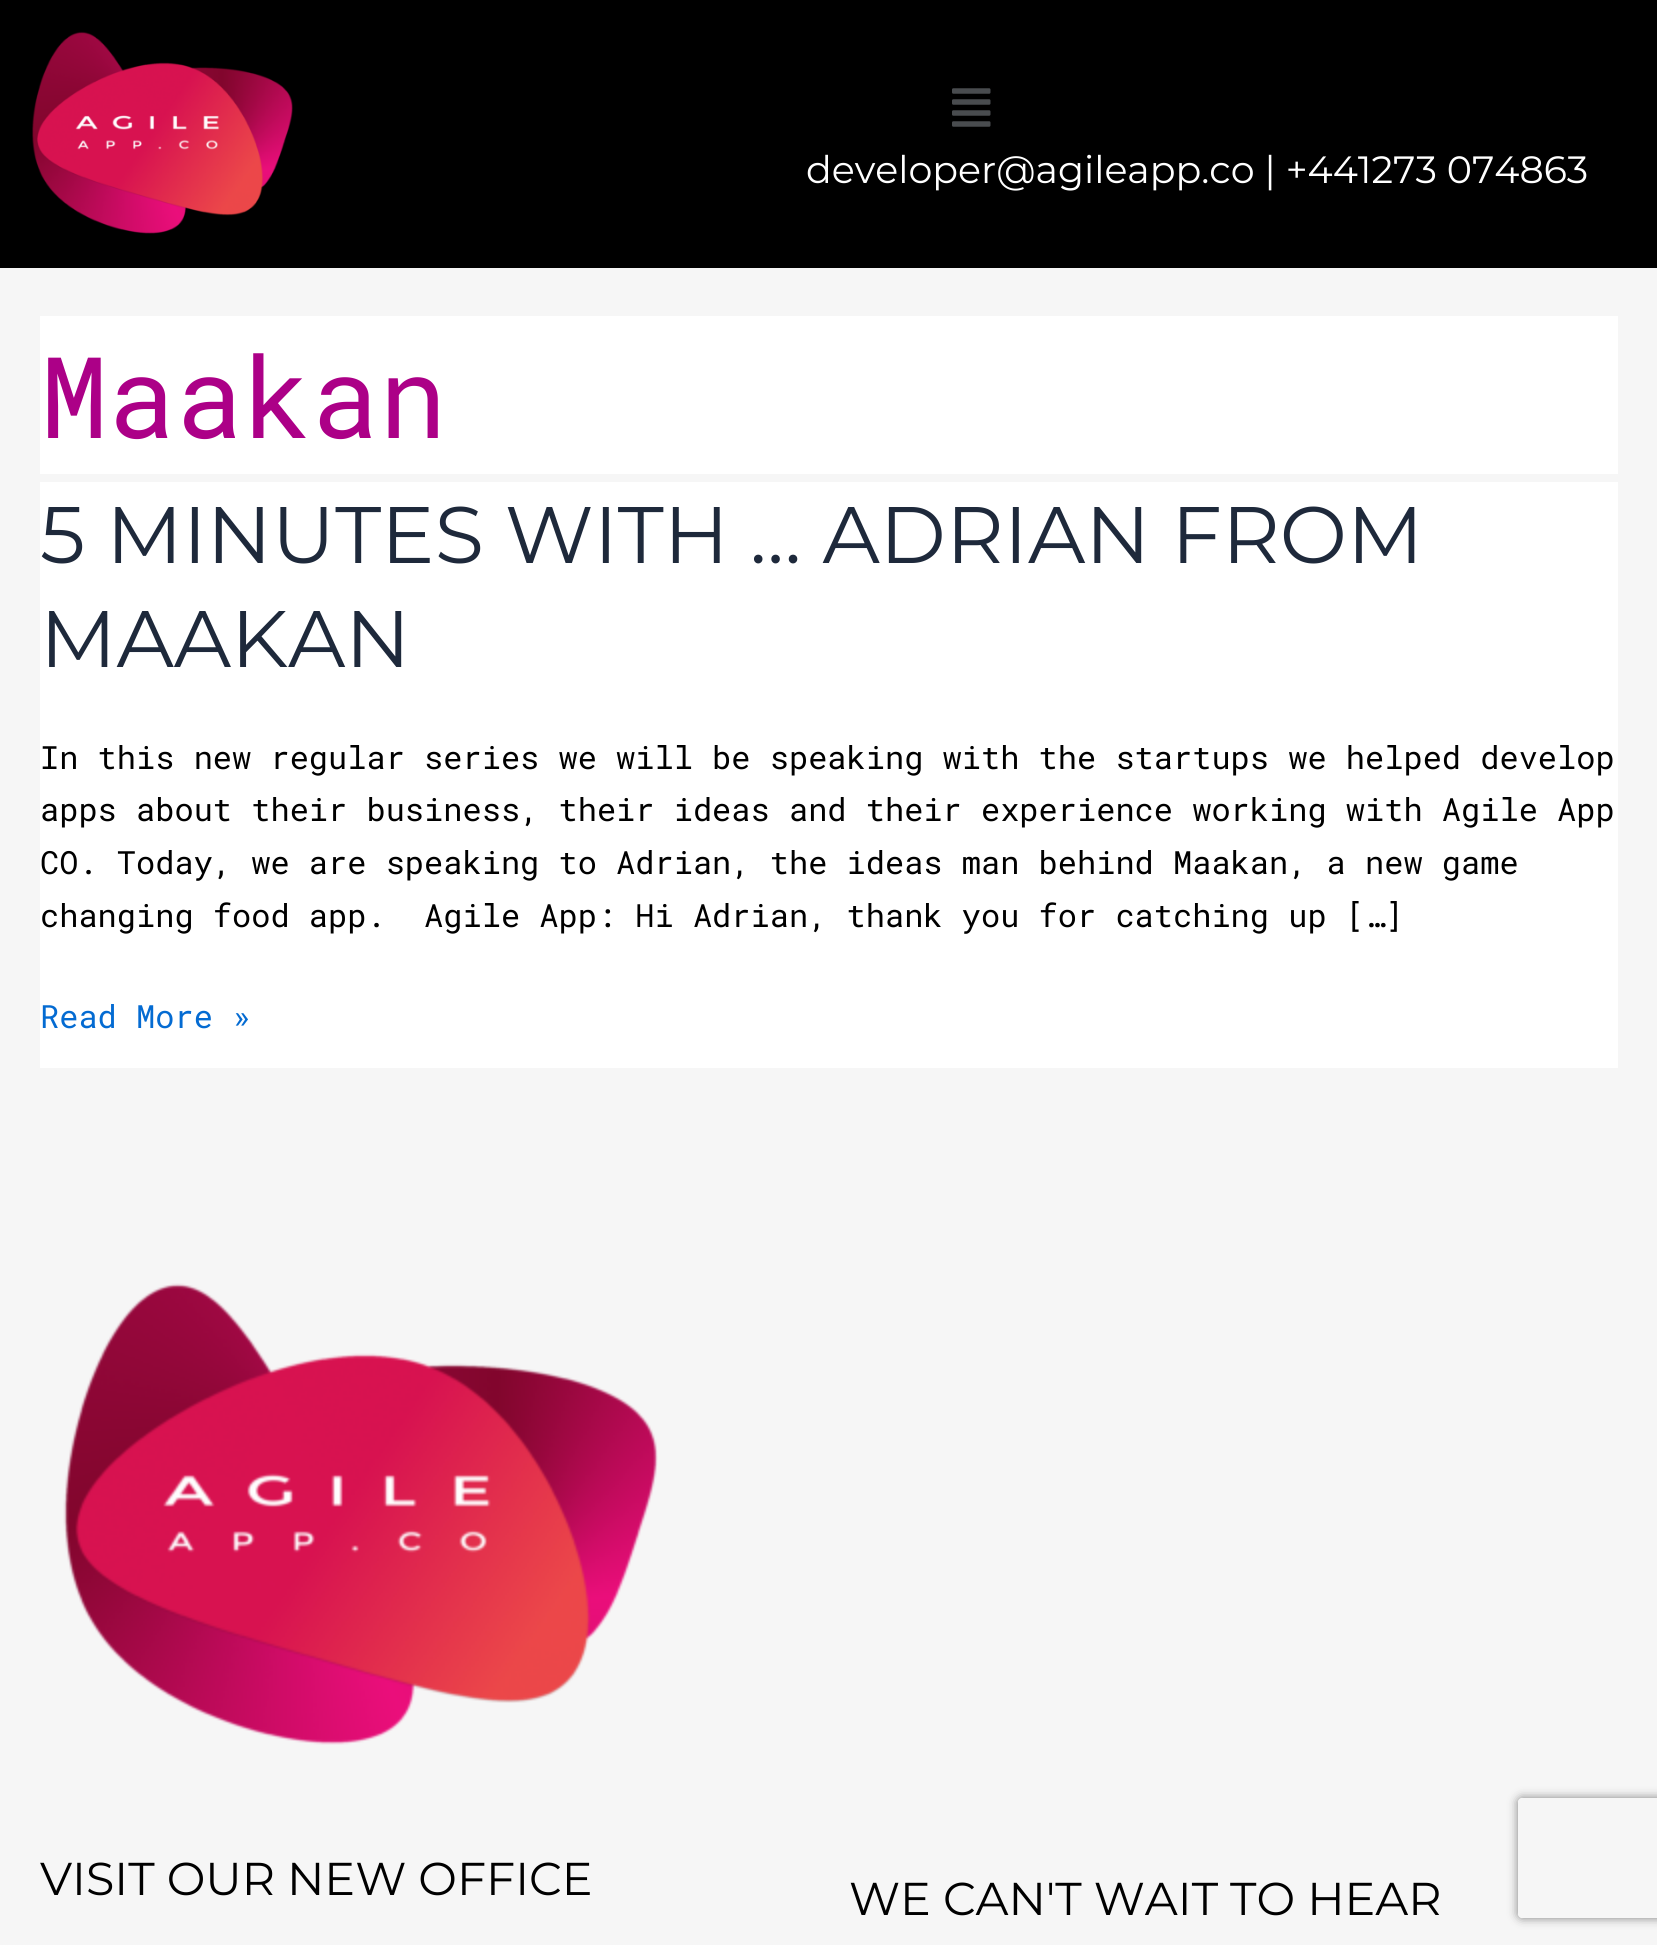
import math
import cairo


def use_color(cr, r, g, b):
  cr.set_source_rgb(r / 255, g / 255, b / 255)

def text(cr, x, y, s, family, size, color, bold=False, italic=False):
  cr.select_font_face(family, cairo.FONT_SLANT_ITALIC if italic else cairo.FONT_SLANT_NORMAL, cairo.FONT_WEIGHT_BOLD if bold else cairo.FONT_WEIGHT_NORMAL)
  cr.set_font_size(size)
  use_color(cr, *color)
  cr.move_to(x, y)
  cr.show_text(s)

def box(cr, x, y, w, h, *color):
  use_color(cr, *color)
  cr.rectangle(x, y, w, h)
  cr.fill()

def round_rect(cr, x, y, w, h, r):
  cr.new_sub_path()
  for i, (u, v) in enumerate([(x + w - r, y + h - r), (x + r, y + h - r), (x + r, y + r), (x + w - r, y + r)]):
    cr.arc(u, v, r, i * math.pi / 2, (i + 1) * math.pi / 2)
  cr.close_path()

def shadow(cr, x, y, w, h, r, blur, alpha):
  cr.push_group_with_content(cairo.CONTENT_ALPHA)
  cr.set_operator(cairo.OPERATOR_SOURCE)
  for i in range(15, -16, -2):
    e = blur * i / 6
    if min(w, h) + 2 * e > 0:
      cr.set_source_rgba(0, 0, 0, alpha * math.erfc((i - 1) / 8.5) / 2)
      round_rect(cr, x - e, y - e, w + 2 * e, h + 2 * e, max(0, min(r + e + blur * .6, min(w, h) / 2 + e)))
      cr.fill()
  cr.mask(cr.pop_group())

def picture(cr, path, x, y, w, h):
  cr.save()
  cr.set_source_surface(cairo.ImageSurface.create_from_png(path), x, y)
  cr.rectangle(x, y, w, h)
  cr.fill()
  cr.restore()

def draw(cr):
  use_color(cr, 246, 246, 246)
  cr.paint()
  box(cr, 0, 0, 1657, 268, 0, 0, 0)
  picture(cr, "img_01.png", 32, 31, 261, 203)
  picture(cr, "img_02.png", 952, 88, 39, 39)
  box(cr, 40, 316, 1578, 158, 255, 255, 255)
  box(cr, 40, 482, 1578, 586, 255, 255, 255)
  picture(cr, "img_03.png", 63, 1283, 595, 462)
  cr.save()
  cr.set_fill_rule(cairo.FILL_RULE_EVEN_ODD)
  cr.new_path()
  cr.move_to(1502, 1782)
  cr.line_to(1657, 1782)
  cr.line_to(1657, 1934)
  cr.line_to(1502, 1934)
  cr.close_path()
  cr.move_to(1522, 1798)
  cr.line_to(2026, 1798)
  cr.curve_to(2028, 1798, 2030, 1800, 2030, 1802)
  cr.line_to(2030, 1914)
  cr.curve_to(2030, 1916, 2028, 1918, 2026, 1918)
  cr.line_to(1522, 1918)
  cr.curve_to(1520, 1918, 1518, 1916, 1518, 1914)
  cr.line_to(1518, 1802)
  cr.curve_to(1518, 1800, 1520, 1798, 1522, 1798)
  cr.close_path()
  cr.clip()
  use_color(cr, 128, 128, 128)
  shadow(cr, 1518, 1798, 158, 120, 4, 5, 1)
  cr.restore()
  text(cr, 806, 183, "developer@agileapp.co | +441273 074863", "Montserrat", 38, (255, 255, 255))
  text(cr, 40, 438, "Maakan", "Roboto Mono", 113, (172, 0, 135))
  text(cr, 40, 563, "5 MINUTES WITH … ADRIAN FROM", "Montserrat", 80, (30, 41, 59))
  text(cr, 40, 667, "MAAKAN", "Montserrat", 80, (30, 41, 59))
  text(cr, 40, 769, "In this new regular series we will be speaking with the startups we helped develop", "Roboto Mono", 32, (0, 0, 0))
  text(cr, 40, 821, "apps about their business, their ideas and their experience working with Agile App", "Roboto Mono", 32, (0, 0, 0))
  text(cr, 40, 874, "CO. Today, we are speaking to Adrian, the ideas man behind Maakan, a new game", "Roboto Mono", 32, (0, 0, 0))
  text(cr, 40, 927, "changing food app.  Agile App: Hi Adrian, thank you for catching up […]", "Roboto Mono", 32, (0, 0, 0))
  text(cr, 40, 1028, "Read More »", "Roboto Mono", 32, (4, 107, 210))
  text(cr, 40, 1895, "VISIT OUR NEW OFFICE", "Montserrat", 46, (0, 0, 0))
  text(cr, 849, 1915, "WE CAN'T WAIT TO HEAR", "Montserrat", 46, (0, 0, 0))


surface = cairo.ImageSurface(cairo.FORMAT_RGB24, 1657, 1945)
cr = cairo.Context(surface)
options = cairo.FontOptions()
options.set_hint_metrics(cairo.HINT_METRICS_OFF)
options.set_hint_style(cairo.HINT_STYLE_NONE)
cr.set_font_options(options)
cr.set_miter_limit(4)
draw(cr)
surface.write_to_png("out.png")
